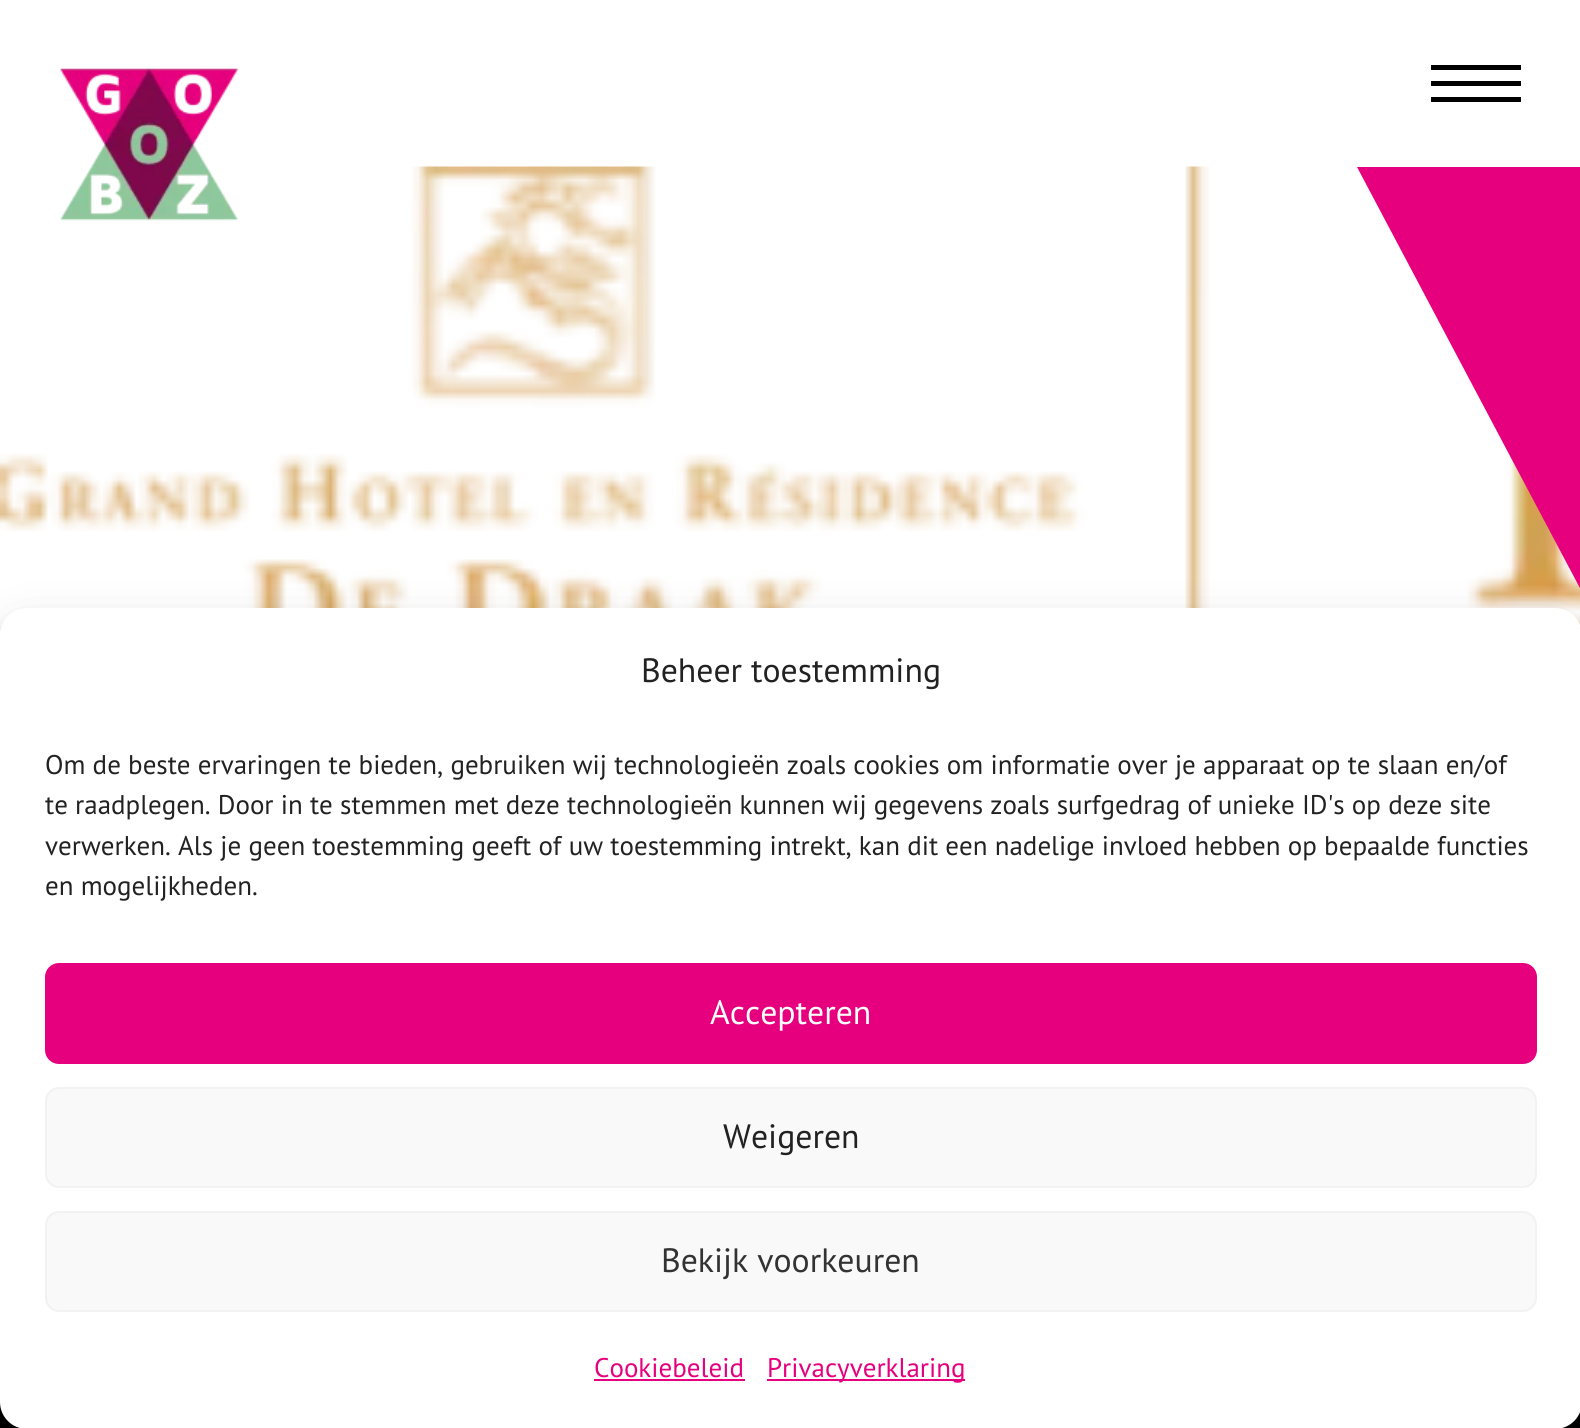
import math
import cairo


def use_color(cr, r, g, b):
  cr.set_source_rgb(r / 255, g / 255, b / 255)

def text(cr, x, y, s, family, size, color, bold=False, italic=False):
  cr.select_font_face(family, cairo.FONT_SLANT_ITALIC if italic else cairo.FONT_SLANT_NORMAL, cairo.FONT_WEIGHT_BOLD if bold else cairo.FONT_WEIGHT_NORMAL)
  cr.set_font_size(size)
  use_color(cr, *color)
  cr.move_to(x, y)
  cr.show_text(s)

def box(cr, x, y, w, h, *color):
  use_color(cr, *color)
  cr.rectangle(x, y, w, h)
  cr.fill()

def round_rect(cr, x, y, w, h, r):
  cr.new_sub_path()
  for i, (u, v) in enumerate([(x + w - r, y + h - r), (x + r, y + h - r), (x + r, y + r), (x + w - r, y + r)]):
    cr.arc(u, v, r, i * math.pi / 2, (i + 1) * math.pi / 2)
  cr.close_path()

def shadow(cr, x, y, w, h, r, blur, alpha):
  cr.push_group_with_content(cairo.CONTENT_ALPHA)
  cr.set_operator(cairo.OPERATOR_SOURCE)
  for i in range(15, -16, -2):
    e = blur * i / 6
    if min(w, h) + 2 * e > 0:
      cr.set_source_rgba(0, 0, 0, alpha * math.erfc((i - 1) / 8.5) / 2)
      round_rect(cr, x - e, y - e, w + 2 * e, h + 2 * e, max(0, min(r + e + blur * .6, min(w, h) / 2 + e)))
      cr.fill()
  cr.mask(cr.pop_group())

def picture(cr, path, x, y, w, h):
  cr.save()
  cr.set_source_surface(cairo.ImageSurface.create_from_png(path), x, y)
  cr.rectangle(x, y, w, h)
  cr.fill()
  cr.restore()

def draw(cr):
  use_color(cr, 255, 255, 255)
  cr.paint()
  picture(cr, "img_02.png", 0, 166, 1580, 459)
  picture(cr, "img_01.png", 60, 68, 179, 153)
  box(cr, 1431, 65, 90, 5, 0, 0, 0)
  box(cr, 1431, 81, 90, 5, 0, 0, 0)
  box(cr, 1431, 97, 90, 5, 0, 0, 0)
  use_color(cr, 230, 0, 126)
  cr.new_path()
  cr.move_to(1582, 167)
  cr.line_to(1357, 167)
  cr.line_to(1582, 592)
  cr.close_path()
  cr.fill()
  box(cr, 0, 1402, 1580, 26, 0, 0, 0)
  use_color(cr, 0, 0, 0)
  shadow(cr, 0, 621, 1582, 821, 27, 7, 0.23)
  shadow(cr, 0, 630, 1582, 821, 27, 22.5, 0.19)
  use_color(cr, 255, 255, 255)
  round_rect(cr, 0, 608, 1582, 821, 27)
  cr.fill()
  use_color(cr, 230, 0, 126)
  round_rect(cr, 46, 964, 1490, 99, 13)
  cr.fill_preserve()
  cr.stroke()
  use_color(cr, 249, 249, 249)
  round_rect(cr, 46, 1088, 1490, 99, 13)
  cr.fill_preserve()
  use_color(cr, 242, 242, 242)
  cr.stroke()
  use_color(cr, 249, 249, 249)
  round_rect(cr, 46, 1212, 1490, 99, 13)
  cr.fill_preserve()
  use_color(cr, 242, 242, 242)
  cr.stroke()
  box(cr, 594, 1379, 151, 2, 230, 0, 126)
  box(cr, 767, 1379, 198, 2, 230, 0, 126)
  text(cr, 641, 682, "Beheer toestemming", "PT Sans", 33.75, (34, 34, 34))
  text(cr, 45, 774, "Om de beste ervaringen te bieden, gebruiken wij technologieën zoals cookies om informatie over je apparaat op te slaan en/of", "PT Sans", 27, (34, 34, 34))
  text(cr, 45, 814, "te raadplegen. Door in te stemmen met deze technologieën kunnen wij gegevens zoals surfgedrag of unieke ID's op deze site", "PT Sans", 27, (34, 34, 34))
  text(cr, 45, 855, "verwerken. Als je geen toestemming geeft of uw toestemming intrekt, kan dit een nadelige invloed hebben op bepaalde functies", "PT Sans", 27, (34, 34, 34))
  text(cr, 45, 895, "en mogelijkheden.", "PT Sans", 27, (34, 34, 34))
  text(cr, 710, 1024, "Accepteren", "PT Sans", 33.75, (255, 255, 255))
  text(cr, 723, 1148, "Weigeren", "PT Sans", 33.75, (34, 34, 34))
  text(cr, 661, 1272, "Bekijk voorkeuren", "PT Sans", 33.75, (51, 51, 51))
  text(cr, 594, 1377, "Cookiebeleid", "PT Sans", 27, (230, 0, 126))
  text(cr, 767, 1377, "Privacyverklaring", "PT Sans", 27, (230, 0, 126))


surface = cairo.ImageSurface(cairo.FORMAT_RGB24, 1580, 1428)
cr = cairo.Context(surface)
options = cairo.FontOptions()
options.set_hint_metrics(cairo.HINT_METRICS_OFF)
options.set_hint_style(cairo.HINT_STYLE_NONE)
cr.set_font_options(options)
cr.set_miter_limit(4)
draw(cr)
surface.write_to_png("out.png")
